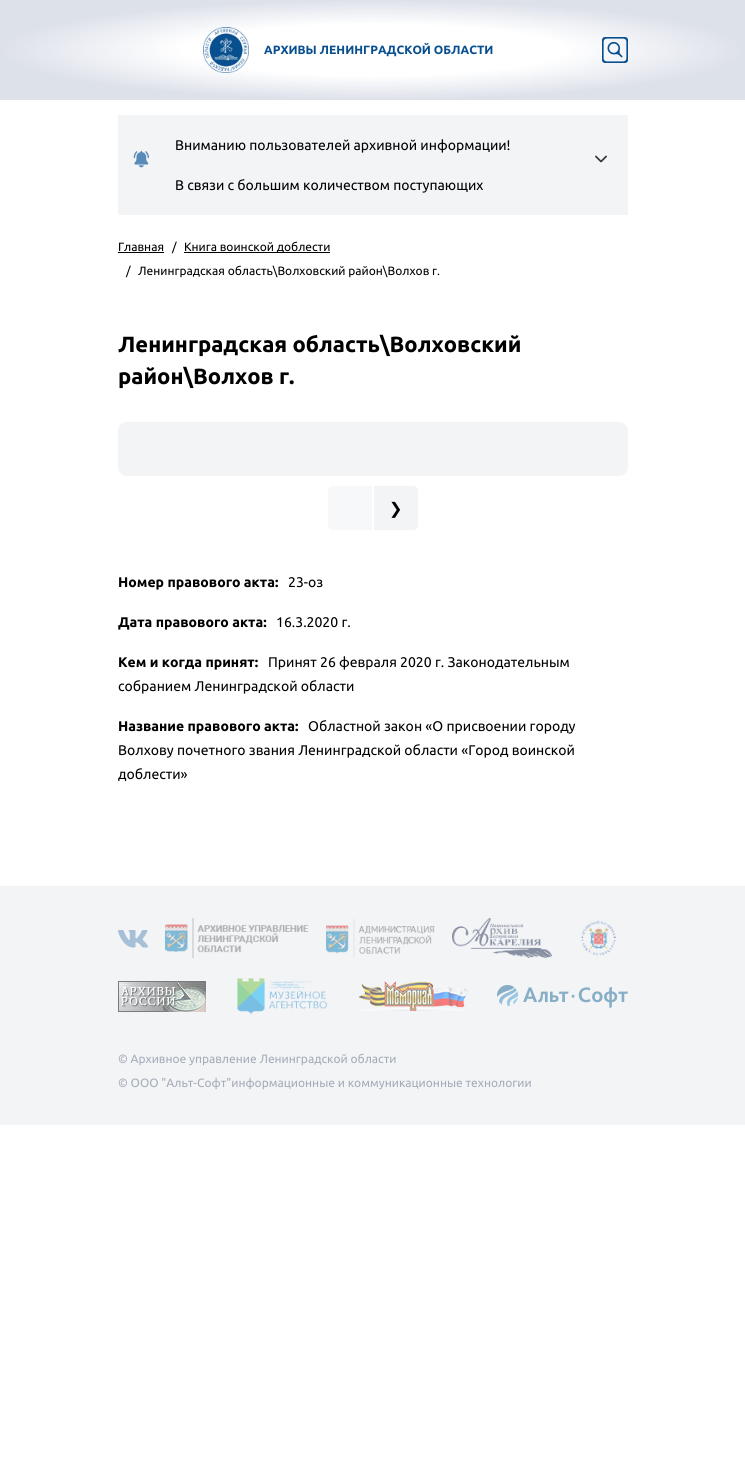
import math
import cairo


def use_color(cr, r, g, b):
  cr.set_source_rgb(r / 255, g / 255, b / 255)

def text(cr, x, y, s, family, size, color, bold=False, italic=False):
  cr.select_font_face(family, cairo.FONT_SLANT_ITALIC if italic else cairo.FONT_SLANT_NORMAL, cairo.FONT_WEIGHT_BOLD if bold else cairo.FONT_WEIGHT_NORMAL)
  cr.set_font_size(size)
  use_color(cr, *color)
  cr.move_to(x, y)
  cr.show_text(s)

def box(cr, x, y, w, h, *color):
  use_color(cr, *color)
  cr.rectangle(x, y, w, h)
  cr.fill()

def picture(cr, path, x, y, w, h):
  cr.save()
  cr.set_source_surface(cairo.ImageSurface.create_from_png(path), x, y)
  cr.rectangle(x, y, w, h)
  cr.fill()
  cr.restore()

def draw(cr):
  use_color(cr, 255, 255, 255)
  cr.paint()
  gradient = cairo.RadialGradient(0, 0, 0, 0, 0, 1)
  gradient.set_matrix(cairo.Matrix(1 / 373, 0, 0, 1 / 50, -1 * 373 / 373, -1 * 50 / 50))
  gradient.add_color_stop_rgba(0.51, 1, 1, 1, 1)
  gradient.add_color_stop_rgba(1, 0.867, 0.882, 0.918, 1)
  cr.set_source(gradient)
  cr.rectangle(0, 0, 745, 100)
  cr.fill()
  picture(cr, "img_01.png", 203, 27, 46, 46)
  picture(cr, "img_02.png", 602, 37, 26, 26)
  box(cr, 118, 115, 510, 100, 243, 244, 246)
  picture(cr, "img_03.png", 133, 150, 16, 18)
  picture(cr, "img_04.png", 595, 155, 12, 8)
  box(cr, 118, 252, 46, 1, 0, 0, 0)
  box(cr, 184, 252, 146, 1, 0, 0, 0)
  use_color(cr, 243, 244, 246)
  cr.new_path()
  cr.move_to(127, 422)
  cr.line_to(619, 422)
  cr.curve_to(624, 422, 628, 426, 628, 431)
  cr.line_to(628, 446)
  cr.line_to(118, 446)
  cr.line_to(118, 431)
  cr.curve_to(118, 426, 122, 422, 127, 422)
  cr.close_path()
  cr.fill()
  cr.new_path()
  cr.move_to(118, 446)
  cr.line_to(628, 446)
  cr.line_to(628, 467)
  cr.curve_to(628, 472, 624, 476, 619, 476)
  cr.line_to(127, 476)
  cr.curve_to(122, 476, 118, 472, 118, 467)
  cr.close_path()
  cr.fill()
  use_color(cr, 247, 248, 249)
  cr.new_path()
  cr.move_to(333, 486)
  cr.line_to(372, 486)
  cr.line_to(372, 530)
  cr.line_to(333, 530)
  cr.curve_to(330, 530, 328, 528, 328, 525)
  cr.line_to(328, 491)
  cr.curve_to(328, 488, 330, 486, 333, 486)
  cr.close_path()
  cr.fill()
  use_color(cr, 243, 244, 246)
  cr.new_path()
  cr.move_to(374.5, 486.5)
  cr.line_to(413, 486.5)
  cr.curve_to(415.5, 486.5, 417.5, 488.5, 417.5, 491)
  cr.line_to(417.5, 525)
  cr.curve_to(417.5, 527.5, 415.5, 529.5, 413, 529.5)
  cr.line_to(374.5, 529.5)
  cr.close_path()
  cr.fill_preserve()
  cr.set_line_width(1)
  cr.stroke()
  box(cr, 0, 886, 745, 239, 243, 244, 246)
  picture(cr, "img_05.png", 118, 930, 30, 18)
  picture(cr, "img_06.png", 165, 918, 144, 40)
  picture(cr, "img_07.png", 326, 918, 109, 40)
  picture(cr, "img_08.png", 452, 918, 100, 40)
  picture(cr, "img_09.png", 581, 920, 35, 36)
  picture(cr, "img_10.png", 118, 981, 88, 31)
  picture(cr, "img_11.png", 237, 978, 90, 37)
  picture(cr, "img_12.png", 358, 981, 111, 30)
  picture(cr, "img_13.png", 497, 985, 131, 23)
  text(cr, 264, 54, "АРХИВЫ ЛЕНИНГРАДСКОЙ ОБЛАСТИ", "Ubuntu", 12, (8, 79, 143), bold=True)
  text(cr, 175, 150, "Вниманию пользователей архивной информации!", "Ubuntu", 14, (0, 0, 0))
  text(cr, 175, 190, "В связи с большим количеством поступающих", "Ubuntu", 14, (0, 0, 0))
  text(cr, 118, 251, "Главная", "Ubuntu", 12, (0, 0, 0))
  text(cr, 172, 251, "/", "Ubuntu", 12, (0, 0, 0))
  text(cr, 184, 251, "Книга воинской доблести", "Ubuntu", 12, (0, 0, 0))
  text(cr, 126, 275, "/", "Ubuntu", 12, (0, 0, 0))
  text(cr, 138, 275, "Ленинградская область\\Волховский район\\Волхов г.", "Ubuntu", 12, (0, 0, 0))
  text(cr, 118, 352, "Ленинградская область\\Волховский", "Ubuntu", 22, (0, 0, 0), bold=True)
  text(cr, 118, 384, "район\\Волхов г.", "Ubuntu", 22, (0, 0, 0), bold=True)
  text(cr, 389, 514, "❯", "DejaVu Sans", 16, (0, 0, 0))
  text(cr, 118, 587, "Номер правового акта:", "Ubuntu", 14, (0, 0, 0), bold=True)
  text(cr, 288, 587, "23-оз", "Ubuntu", 14, (0, 0, 0))
  text(cr, 118, 627, "Дата правового акта:", "Ubuntu", 14, (0, 0, 0), bold=True)
  text(cr, 276, 627, "16.3.2020 г.", "Ubuntu", 14, (0, 0, 0))
  text(cr, 118, 667, "Кем и когда принят:", "Ubuntu", 14, (0, 0, 0), bold=True)
  text(cr, 268, 667, "Принят 26 февраля 2020 г. Законодательным", "Ubuntu", 14, (0, 0, 0))
  text(cr, 118, 691, "собранием Ленинградской области", "Ubuntu", 14, (0, 0, 0))
  text(cr, 118, 731, "Название правового акта:", "Ubuntu", 14, (0, 0, 0), bold=True)
  text(cr, 308, 731, "Областной закон «О присвоении городу", "Ubuntu", 14, (0, 0, 0))
  text(cr, 118, 755, "Волхову почетного звания Ленинградской области «Город воинской", "Ubuntu", 14, (0, 0, 0))
  text(cr, 118, 779, "доблести»", "Ubuntu", 14, (0, 0, 0))
  text(cr, 118, 1063, "© Архивное управление Ленинградской области", "Ubuntu", 12, (165, 172, 185))
  text(cr, 118, 1087, "© ООО \"Альт-Софт\"информационные и коммуникационные технологии", "Ubuntu", 12, (165, 172, 185))


surface = cairo.ImageSurface(cairo.FORMAT_RGB24, 745, 1458)
cr = cairo.Context(surface)
options = cairo.FontOptions()
options.set_hint_metrics(cairo.HINT_METRICS_OFF)
options.set_hint_style(cairo.HINT_STYLE_NONE)
cr.set_font_options(options)
cr.set_miter_limit(4)
draw(cr)
surface.write_to_png("out.png")
